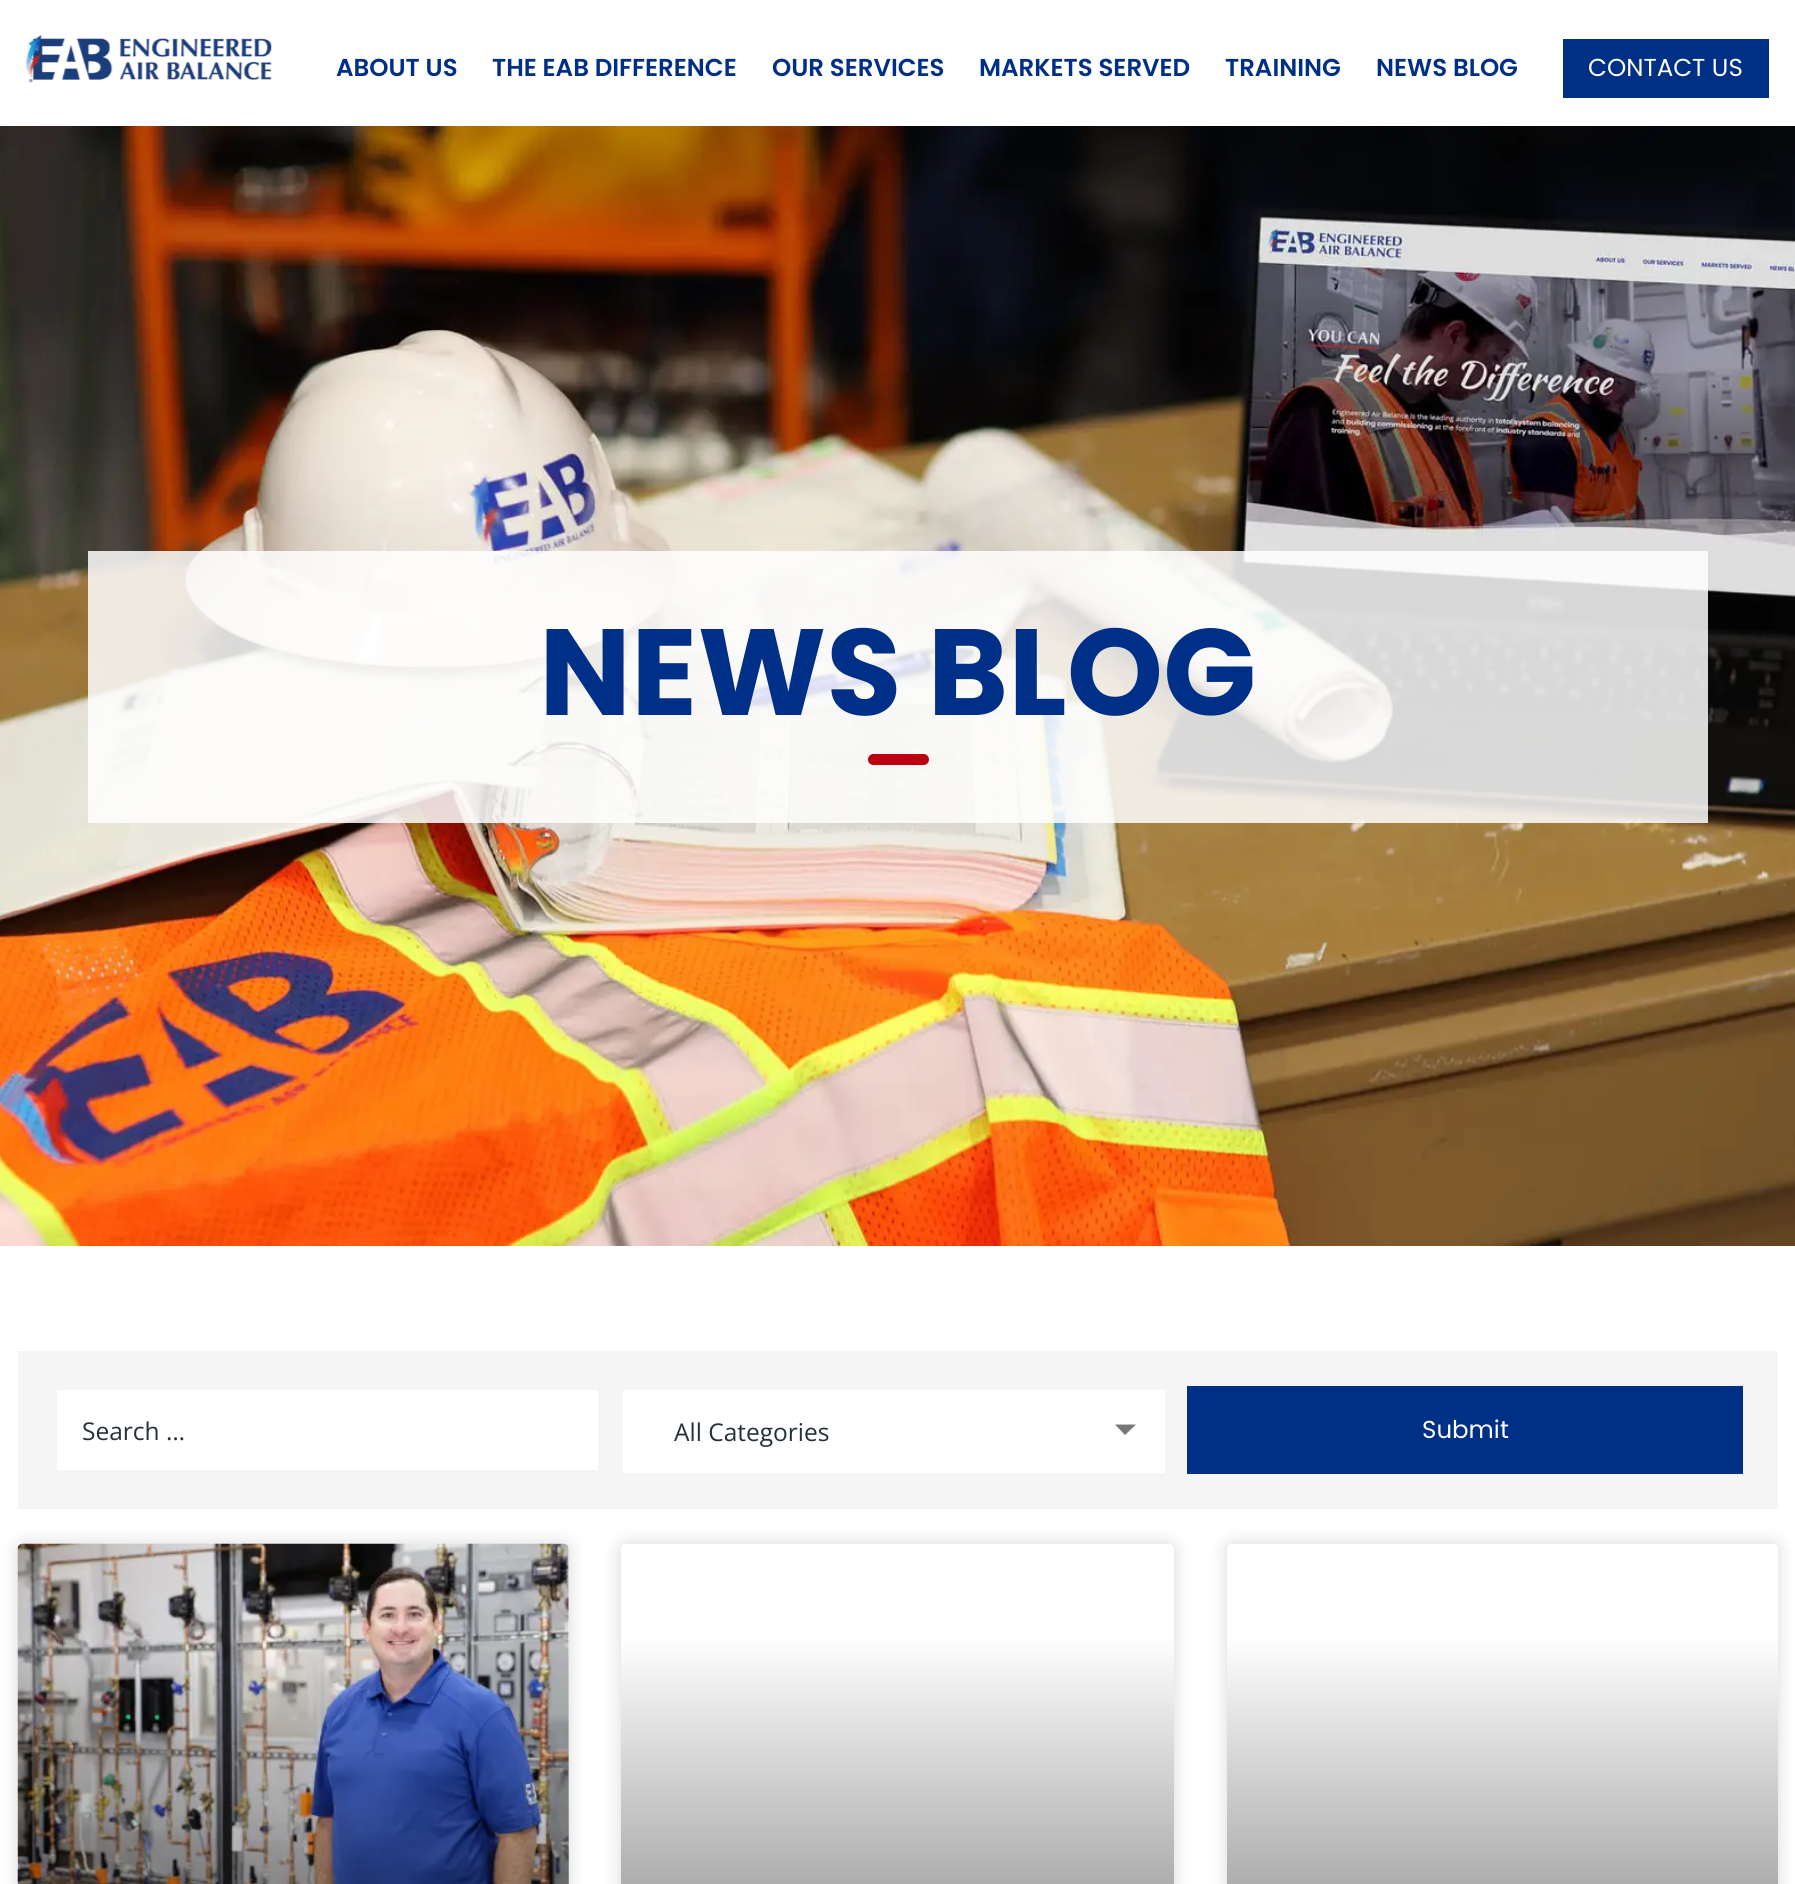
import math
import cairo


def use_color(cr, r, g, b):
  cr.set_source_rgb(r / 255, g / 255, b / 255)

def text(cr, x, y, s, family, size, color, bold=False, italic=False):
  cr.select_font_face(family, cairo.FONT_SLANT_ITALIC if italic else cairo.FONT_SLANT_NORMAL, cairo.FONT_WEIGHT_BOLD if bold else cairo.FONT_WEIGHT_NORMAL)
  cr.set_font_size(size)
  use_color(cr, *color)
  cr.move_to(x, y)
  cr.show_text(s)

def box(cr, x, y, w, h, *color):
  use_color(cr, *color)
  cr.rectangle(x, y, w, h)
  cr.fill()

def round_rect(cr, x, y, w, h, r):
  cr.new_sub_path()
  for i, (u, v) in enumerate([(x + w - r, y + h - r), (x + r, y + h - r), (x + r, y + r), (x + w - r, y + r)]):
    cr.arc(u, v, r, i * math.pi / 2, (i + 1) * math.pi / 2)
  cr.close_path()

def shadow(cr, x, y, w, h, r, blur, alpha):
  cr.push_group_with_content(cairo.CONTENT_ALPHA)
  cr.set_operator(cairo.OPERATOR_SOURCE)
  for i in range(15, -16, -2):
    e = blur * i / 6
    if min(w, h) + 2 * e > 0:
      cr.set_source_rgba(0, 0, 0, alpha * math.erfc((i - 1) / 8.5) / 2)
      round_rect(cr, x - e, y - e, w + 2 * e, h + 2 * e, max(0, min(r + e + blur * .6, min(w, h) / 2 + e)))
      cr.fill()
  cr.mask(cr.pop_group())

def picture(cr, path, x, y, w, h):
  cr.save()
  cr.set_source_surface(cairo.ImageSurface.create_from_png(path), x, y)
  cr.rectangle(x, y, w, h)
  cr.fill()
  cr.restore()

def draw(cr):
  use_color(cr, 255, 255, 255)
  cr.paint()
  picture(cr, "img_01.png", 26, 35, 246, 48)
  box(cr, 1563, 39, 206, 59, 0, 47, 134)
  picture(cr, "img_02.png", 0, 126, 1795, 1120)
  cr.set_source_rgba(1, 1, 1, 0.84)
  cr.rectangle(88, 551, 1620, 272)
  cr.fill()
  use_color(cr, 187, 0, 18)
  round_rect(cr, 868, 754, 61, 11, 5.5)
  cr.fill()
  box(cr, 18, 1351, 1760, 158, 245, 245, 245)
  box(cr, 57, 1390, 541, 80, 255, 255, 255)
  box(cr, 623, 1390, 542, 83, 255, 255, 255)
  use_color(cr, 119, 119, 119)
  cr.new_path()
  cr.move_to(1115, 1424.5)
  cr.line_to(1136, 1424.5)
  cr.line_to(1125, 1435)
  cr.close_path()
  cr.fill()
  box(cr, 1187, 1386, 556, 88, 0, 47, 134)
  use_color(cr, 0, 0, 0)
  shadow(cr, 18, 1544, 551, 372, 5, 9, 0.15)
  use_color(cr, 255, 255, 255)
  round_rect(cr, 18, 1544, 551, 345, 5)
  cr.fill()
  picture(cr, "img_03.png", 17, 1543, 552, 341)
  gradient = cairo.LinearGradient(293, 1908, 293, 1544)
  gradient.add_color_stop_rgba(0, 0, 0, 0, 0.35)
  gradient.add_color_stop_rgba(0.75, 0, 0, 0, 0)
  cr.set_source(gradient)
  cr.rectangle(18, 1652, 551, 232)
  cr.fill()
  use_color(cr, 0, 0, 0)
  shadow(cr, 621, 1544, 553, 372, 5, 9, 0.15)
  gradient = cairo.LinearGradient(898, 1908, 898, 1544)
  gradient.add_color_stop_rgba(0, 0.651, 0.651, 0.651, 1)
  gradient.add_color_stop_rgba(0.75, 1, 1, 1, 1)
  cr.set_source(gradient)
  cr.new_path()
  cr.move_to(626, 1544)
  cr.line_to(1169, 1544)
  cr.curve_to(1172, 1544, 1174, 1546, 1174, 1549)
  cr.line_to(1174, 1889)
  cr.line_to(621, 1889)
  cr.line_to(621, 1549)
  cr.curve_to(621, 1546, 623, 1544, 626, 1544)
  cr.close_path()
  cr.fill()
  use_color(cr, 0, 0, 0)
  shadow(cr, 1227, 1544, 551, 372, 5, 9, 0.15)
  gradient = cairo.LinearGradient(1502, 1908, 1502, 1544)
  gradient.add_color_stop_rgba(0, 0.651, 0.651, 0.651, 1)
  gradient.add_color_stop_rgba(0.75, 1, 1, 1, 1)
  cr.set_source(gradient)
  cr.new_path()
  cr.move_to(1232, 1544)
  cr.line_to(1773, 1544)
  cr.curve_to(1776, 1544, 1778, 1546, 1778, 1549)
  cr.line_to(1778, 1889)
  cr.line_to(1227, 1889)
  cr.line_to(1227, 1549)
  cr.curve_to(1227, 1546, 1229, 1544, 1232, 1544)
  cr.close_path()
  cr.fill()
  text(cr, 336, 76, "ABOUT US", "Poppins SemiBold", 24.5, (0, 47, 135))
  text(cr, 492, 76, "THE EAB DIFFERENCE", "Poppins SemiBold", 24.5, (0, 47, 135))
  text(cr, 772, 76, "OUR SERVICES", "Poppins SemiBold", 24.5, (0, 47, 135))
  text(cr, 979, 76, "MARKETS SERVED", "Poppins SemiBold", 24.5, (0, 47, 135))
  text(cr, 1225, 76, "TRAINING", "Poppins SemiBold", 24.5, (0, 47, 135))
  text(cr, 1376, 76, "NEWS BLOG", "Poppins SemiBold", 24.5, (0, 47, 135))
  text(cr, 1588, 76, "CONTACT US", "Poppins", 24.5, (255, 255, 255))
  text(cr, 539, 715, "NEWS BLOG", "Poppins", 122.5, (0, 47, 135), bold=True)
  text(cr, 82, 1440, "Search …", "Open Sans", 24.5, (36, 50, 56))
  text(cr, 674, 1441, "All Categories", "Open Sans", 24.5, (36, 50, 56))
  text(cr, 1422, 1438, "Submit", "Poppins", 24.5, (255, 255, 255))


surface = cairo.ImageSurface(cairo.FORMAT_RGB24, 1795, 1884)
cr = cairo.Context(surface)
options = cairo.FontOptions()
options.set_hint_metrics(cairo.HINT_METRICS_OFF)
options.set_hint_style(cairo.HINT_STYLE_NONE)
cr.set_font_options(options)
cr.set_miter_limit(4)
draw(cr)
surface.write_to_png("out.png")
